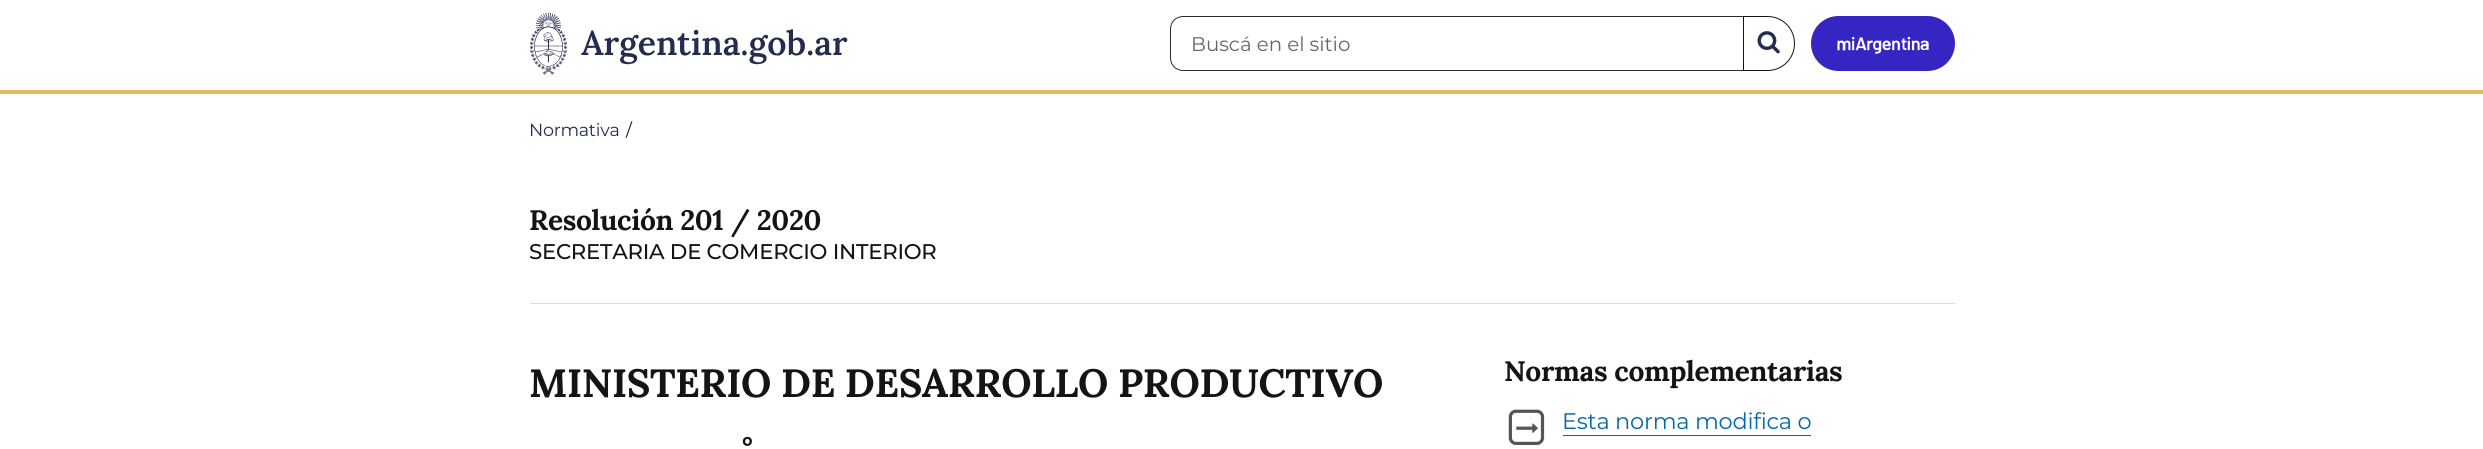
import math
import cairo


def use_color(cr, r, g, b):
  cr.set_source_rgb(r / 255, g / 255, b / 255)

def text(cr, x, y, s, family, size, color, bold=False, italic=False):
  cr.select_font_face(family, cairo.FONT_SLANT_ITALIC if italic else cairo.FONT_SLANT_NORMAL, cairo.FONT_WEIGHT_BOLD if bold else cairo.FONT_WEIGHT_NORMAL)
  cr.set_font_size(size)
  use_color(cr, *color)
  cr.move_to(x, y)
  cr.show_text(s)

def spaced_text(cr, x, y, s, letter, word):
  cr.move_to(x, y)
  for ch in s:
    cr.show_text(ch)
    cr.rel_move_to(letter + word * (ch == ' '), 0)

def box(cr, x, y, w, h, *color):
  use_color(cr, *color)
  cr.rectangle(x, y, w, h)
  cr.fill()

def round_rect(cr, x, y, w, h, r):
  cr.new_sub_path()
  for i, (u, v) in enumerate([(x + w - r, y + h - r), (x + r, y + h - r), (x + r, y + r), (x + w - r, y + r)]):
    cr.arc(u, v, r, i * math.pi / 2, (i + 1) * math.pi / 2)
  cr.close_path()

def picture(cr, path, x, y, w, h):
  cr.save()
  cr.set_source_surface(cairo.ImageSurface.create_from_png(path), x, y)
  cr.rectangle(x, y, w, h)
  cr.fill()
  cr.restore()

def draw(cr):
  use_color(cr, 255, 255, 255)
  cr.paint()
  box(cr, 0, 90, 2483, 4, 231, 186, 97)
  picture(cr, "img_01.png", 530, 13, 318, 62)
  cr.new_path()
  cr.move_to(1183, 16.5)
  cr.line_to(1743.5, 16.5)
  cr.line_to(1743.5, 70.5)
  cr.line_to(1183, 70.5)
  cr.curve_to(1176, 70.5, 1170.5, 65, 1170.5, 58)
  cr.line_to(1170.5, 29)
  cr.curve_to(1170.5, 22, 1176, 16.5, 1183, 16.5)
  cr.close_path()
  use_color(cr, 44, 44, 44)
  cr.set_line_width(1)
  cr.stroke()
  use_color(cr, 255, 255, 255)
  cr.new_path()
  cr.move_to(1743.5, 16.5)
  cr.line_to(1767.5, 16.5)
  cr.curve_to(1782.5, 16.5, 1794.5, 28.5, 1794.5, 43.5)
  cr.curve_to(1794.5, 58.5, 1782.5, 70.5, 1767.5, 70.5)
  cr.line_to(1743.5, 70.5)
  cr.close_path()
  cr.fill_preserve()
  use_color(cr, 20, 20, 20)
  cr.stroke()
  picture(cr, "img_02.png", 1757, 31, 23, 23)
  use_color(cr, 53, 38, 195)
  round_rect(cr, 1811, 16, 144, 55, 27.5)
  cr.fill()
  picture(cr, "img_03.png", 1837, 36, 92, 18)
  box(cr, 530, 303, 1425, 1, 221, 221, 221)
  picture(cr, "img_04.png", 1508, 409, 37, 36)
  picture(cr, "img_05.png", 1516, 423, 22, 10)
  box(cr, 1563, 435, 248, 1, 7, 103, 167)
  text(cr, 1191, 51, "Buscá en el sitio", "Montserrat", 19.75, (102, 102, 102))
  cr.set_font_size(17.5)
  use_color(cr, 35, 45, 79)
  spaced_text(cr, 529, 136, "Normativa", -0.25, 0)
  use_color(cr, 20, 20, 20)
  spaced_text(cr, 626, 136, "/", -0.25, 0)
  cr.select_font_face("Lora", cairo.FONT_SLANT_NORMAL, cairo.FONT_WEIGHT_BOLD)
  cr.set_font_size(28.1)
  spaced_text(cr, 529, 230, "Resolución 201 / 2020", -0.35, 0)
  cr.select_font_face("Montserrat Medium")
  cr.set_font_size(21.25)
  spaced_text(cr, 529, 259, "SECRETARIA DE COMERCIO INTERIOR", -0.25, 0)
  cr.select_font_face("Lora", cairo.FONT_SLANT_NORMAL, cairo.FONT_WEIGHT_BOLD)
  cr.set_font_size(39.4)
  spaced_text(cr, 529, 397, "MINISTERIO DE DESARROLLO PRODUCTIVO", -0.35, 0)
  cr.set_font_size(28.1)
  spaced_text(cr, 742, 457, "°", -0.35, 0)
  spaced_text(cr, 1504, 381, "Normas complementarias", -0.35, 0)
  cr.select_font_face("Montserrat")
  cr.set_font_size(22.5)
  use_color(cr, 7, 103, 167)
  spaced_text(cr, 1562, 429, "Esta norma modifica o", -0.25, 0)


surface = cairo.ImageSurface(cairo.FORMAT_RGB24, 2483, 449)
cr = cairo.Context(surface)
options = cairo.FontOptions()
options.set_hint_metrics(cairo.HINT_METRICS_OFF)
options.set_hint_style(cairo.HINT_STYLE_NONE)
cr.set_font_options(options)
cr.set_miter_limit(4)
draw(cr)
surface.write_to_png("out.png")
